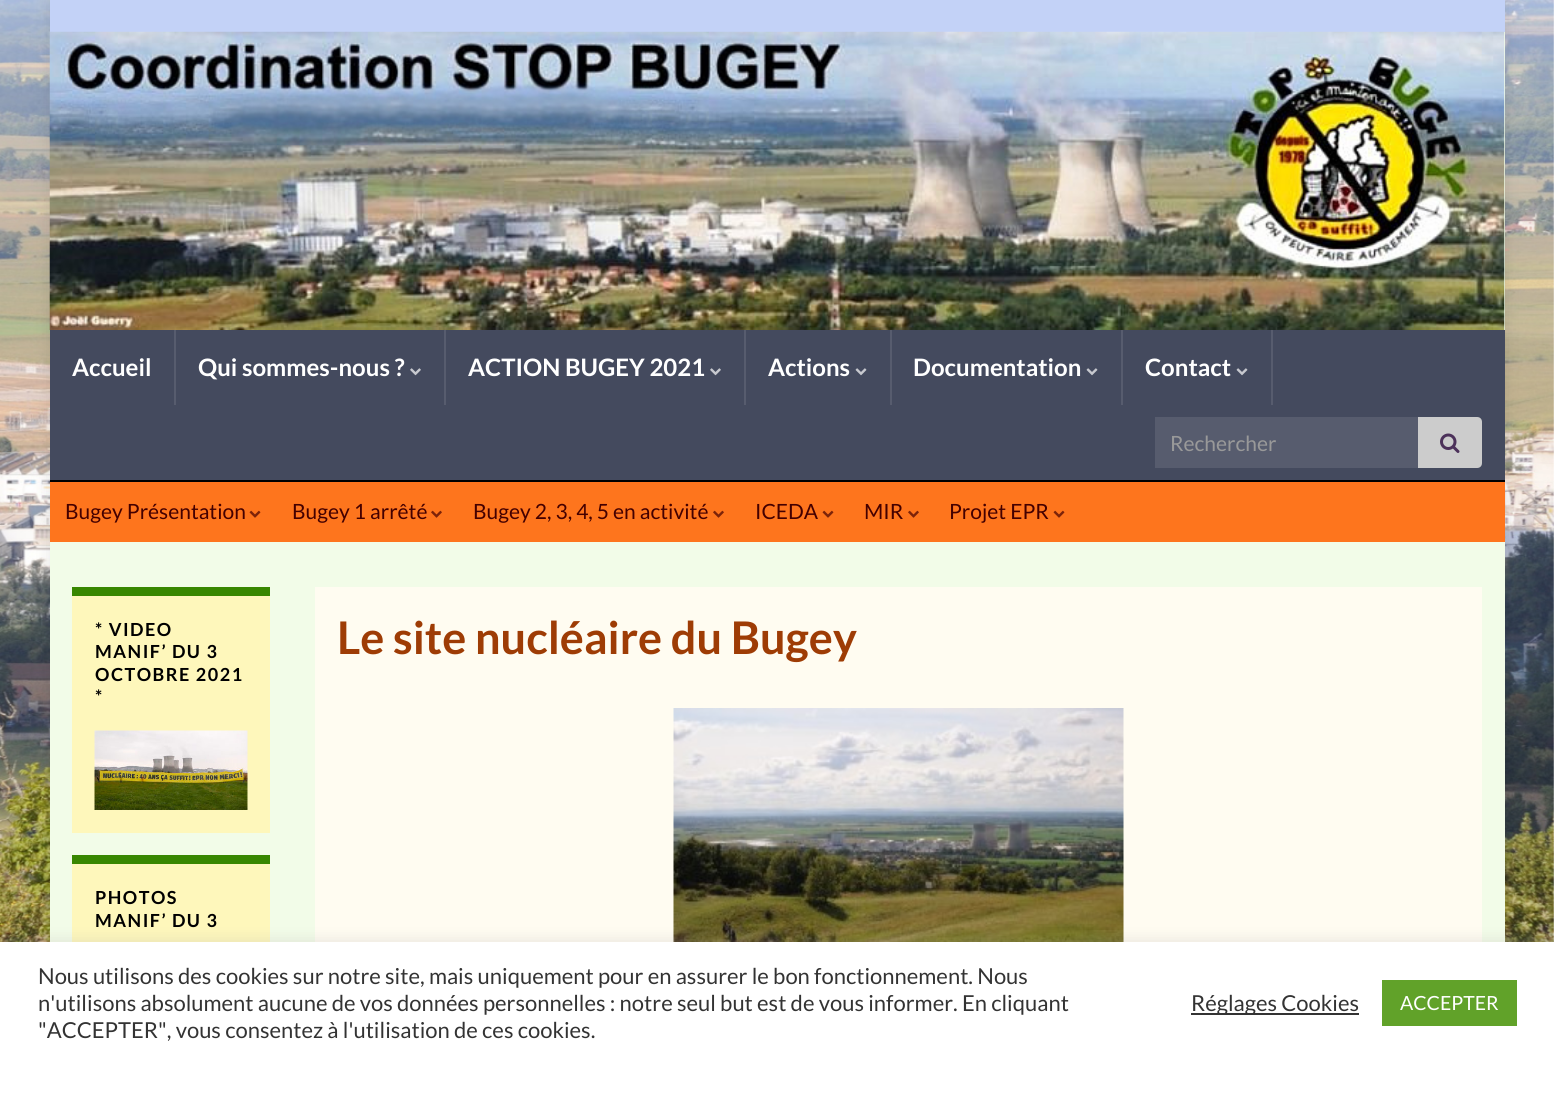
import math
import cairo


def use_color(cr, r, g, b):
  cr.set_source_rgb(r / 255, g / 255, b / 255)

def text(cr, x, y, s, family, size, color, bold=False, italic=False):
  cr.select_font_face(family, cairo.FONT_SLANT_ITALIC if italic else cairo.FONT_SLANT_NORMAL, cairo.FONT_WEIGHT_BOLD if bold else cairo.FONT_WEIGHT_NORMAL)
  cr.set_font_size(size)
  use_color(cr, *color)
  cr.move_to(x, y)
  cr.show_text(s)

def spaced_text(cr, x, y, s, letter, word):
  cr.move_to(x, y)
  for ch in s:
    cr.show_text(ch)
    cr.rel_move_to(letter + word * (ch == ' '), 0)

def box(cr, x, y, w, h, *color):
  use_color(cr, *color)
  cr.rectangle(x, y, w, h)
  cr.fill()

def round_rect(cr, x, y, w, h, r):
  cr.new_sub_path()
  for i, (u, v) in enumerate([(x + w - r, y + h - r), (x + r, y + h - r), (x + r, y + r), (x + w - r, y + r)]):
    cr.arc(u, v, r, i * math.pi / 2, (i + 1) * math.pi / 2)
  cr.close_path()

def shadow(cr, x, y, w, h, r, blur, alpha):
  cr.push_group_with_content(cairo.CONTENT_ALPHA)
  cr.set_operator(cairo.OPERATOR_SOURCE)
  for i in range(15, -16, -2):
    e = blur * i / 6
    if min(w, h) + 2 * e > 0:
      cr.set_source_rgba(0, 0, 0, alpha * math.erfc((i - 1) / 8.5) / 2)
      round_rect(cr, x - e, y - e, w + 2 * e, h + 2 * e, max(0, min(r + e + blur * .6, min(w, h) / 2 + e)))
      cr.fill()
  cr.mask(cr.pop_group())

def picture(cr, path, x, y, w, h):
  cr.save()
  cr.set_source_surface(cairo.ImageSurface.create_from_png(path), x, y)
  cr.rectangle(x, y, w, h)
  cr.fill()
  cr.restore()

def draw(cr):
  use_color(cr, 255, 255, 255)
  cr.paint()
  picture(cr, "img_01.png", 0, 0, 1554, 942)
  use_color(cr, 0, 0, 0)
  shadow(cr, 50, 0, 1455, 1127, 0, 7.5, 0.1)
  box(cr, 50, 0, 1455, 32, 195, 210, 247)
  box(cr, 1504, 32, 1, 298, 242, 252, 232)
  picture(cr, "img_02.png", 49, 31, 1456, 299)
  box(cr, 50, 330, 1455, 150, 68, 74, 94)
  box(cr, 174, 330, 2, 75, 87, 92, 110)
  box(cr, 444, 330, 2, 75, 87, 92, 110)
  picture(cr, "img_03.png", 410, 368, 11, 8)
  box(cr, 744, 330, 2, 75, 87, 92, 110)
  picture(cr, "img_03.png", 710, 368, 11, 8)
  box(cr, 890, 330, 2, 75, 87, 92, 110)
  picture(cr, "img_04.png", 855, 368, 12, 8)
  box(cr, 1121, 330, 2, 75, 87, 92, 110)
  picture(cr, "img_04.png", 1086, 368, 12, 8)
  box(cr, 1271, 330, 2, 75, 87, 92, 110)
  picture(cr, "img_04.png", 1236, 368, 12, 8)
  box(cr, 1155, 417, 263, 51, 87, 92, 110)
  use_color(cr, 204, 204, 204)
  cr.new_path()
  cr.move_to(1418, 417)
  cr.line_to(1477, 417)
  cr.curve_to(1480, 417, 1482, 419, 1482, 422)
  cr.line_to(1482, 463)
  cr.curve_to(1482, 466, 1480, 468, 1477, 468)
  cr.line_to(1418, 468)
  cr.close_path()
  cr.fill()
  picture(cr, "img_05.png", 1440, 433, 20, 20)
  box(cr, 50, 482, 1455, 60, 254, 117, 29)
  box(cr, 50, 480, 1455, 2, 0, 0, 0)
  picture(cr, "img_06.png", 249, 510, 12, 8)
  picture(cr, "img_07.png", 431, 510, 11, 8)
  picture(cr, "img_07.png", 713, 510, 11, 8)
  picture(cr, "img_06.png", 822, 510, 12, 8)
  picture(cr, "img_07.png", 908, 510, 11, 8)
  picture(cr, "img_06.png", 1053, 510, 12, 8)
  box(cr, 50, 542, 1455, 400, 242, 252, 232)
  box(cr, 72, 596, 198, 237, 254, 247, 187)
  box(cr, 72, 587, 198, 9, 56, 135, 0)
  picture(cr, "img_08.png", 94, 730, 154, 80)
  box(cr, 72, 864, 198, 78, 254, 247, 187)
  box(cr, 72, 855, 198, 9, 56, 135, 0)
  box(cr, 315, 587, 1167, 355, 255, 252, 241)
  picture(cr, "img_09.png", 673, 708, 451, 234)
  use_color(cr, 172, 171, 171)
  shadow(cr, 0, 941, 1554, 162, 0, 7.5, 0.3)
  box(cr, 0, 942, 1554, 162, 255, 255, 255)
  box(cr, 1191, 1013, 168, 2, 51, 51, 51)
  box(cr, 1382, 980, 135, 46, 97, 162, 41)
  text(cr, 72, 376, "Accueil", "Lato", 24, (255, 255, 255), bold=True)
  text(cr, 198, 376, "Qui sommes-nous ?", "Lato", 24, (255, 255, 255), bold=True)
  text(cr, 468, 376, "ACTION BUGEY 2021", "Lato", 24, (255, 255, 255), bold=True)
  text(cr, 768, 376, "Actions", "Lato", 24, (255, 255, 255), bold=True)
  text(cr, 913, 376, "Documentation", "Lato", 24, (255, 255, 255), bold=True)
  text(cr, 1145, 376, "Contact", "Lato", 24, (255, 255, 255), bold=True)
  text(cr, 1170, 451, "Rechercher", "Lato", 21, (153, 153, 153))
  text(cr, 65, 519, "Bugey Présentation", "Lato", 21, (68, 0, 0))
  text(cr, 292, 519, "Bugey 1 arrêté", "Lato", 21, (68, 0, 0))
  text(cr, 473, 519, "Bugey 2, 3, 4, 5 en activité", "Lato", 21, (68, 0, 0))
  text(cr, 755, 519, "ICEDA", "Lato", 21, (68, 0, 0))
  text(cr, 864, 519, "MIR", "Lato", 21, (68, 0, 0))
  text(cr, 949, 519, "Projet EPR", "Lato", 21, (68, 0, 0))
  cr.select_font_face("Lato", cairo.FONT_SLANT_NORMAL, cairo.FONT_WEIGHT_BOLD)
  cr.set_font_size(18)
  use_color(cr, 0, 0, 0)
  spaced_text(cr, 95, 636, "* VIDEO", 1.5, 0)
  spaced_text(cr, 95, 658, "MANIF’ DU 3", 1.5, 0)
  spaced_text(cr, 95, 681, "OCTOBRE 2021", 1.5, 0)
  spaced_text(cr, 95, 703, "*", 1.5, 0)
  spaced_text(cr, 95, 904, "PHOTOS", 1.5, 0)
  spaced_text(cr, 95, 927, "MANIF’ DU 3", 1.5, 0)
  text(cr, 337, 654, "Le site nucléaire du Bugey", "Lato", 45, (158, 60, 5), bold=True)
  text(cr, 38, 984, "Nous utilisons des cookies sur notre site, mais uniquement pour en assurer le bon fonctionnement. Nous", "Lato", 22, (51, 51, 51))
  text(cr, 38, 1011, "n'utilisons absolument aucune de vos données personnelles : notre seul but est de vous informer. En cliquant", "Lato", 22, (51, 51, 51))
  text(cr, 38, 1038, "\"ACCEPTER\", vous consentez à l'utilisation de ces cookies.", "Lato", 22, (51, 51, 51))
  text(cr, 1191, 1011, "Réglages Cookies", "Lato", 22, (51, 51, 51))
  text(cr, 1400, 1010, "ACCEPTER", "Lato", 19.5, (255, 255, 255))


surface = cairo.ImageSurface(cairo.FORMAT_RGB24, 1554, 1104)
cr = cairo.Context(surface)
options = cairo.FontOptions()
options.set_hint_metrics(cairo.HINT_METRICS_OFF)
options.set_hint_style(cairo.HINT_STYLE_NONE)
cr.set_font_options(options)
cr.set_miter_limit(4)
draw(cr)
surface.write_to_png("out.png")
